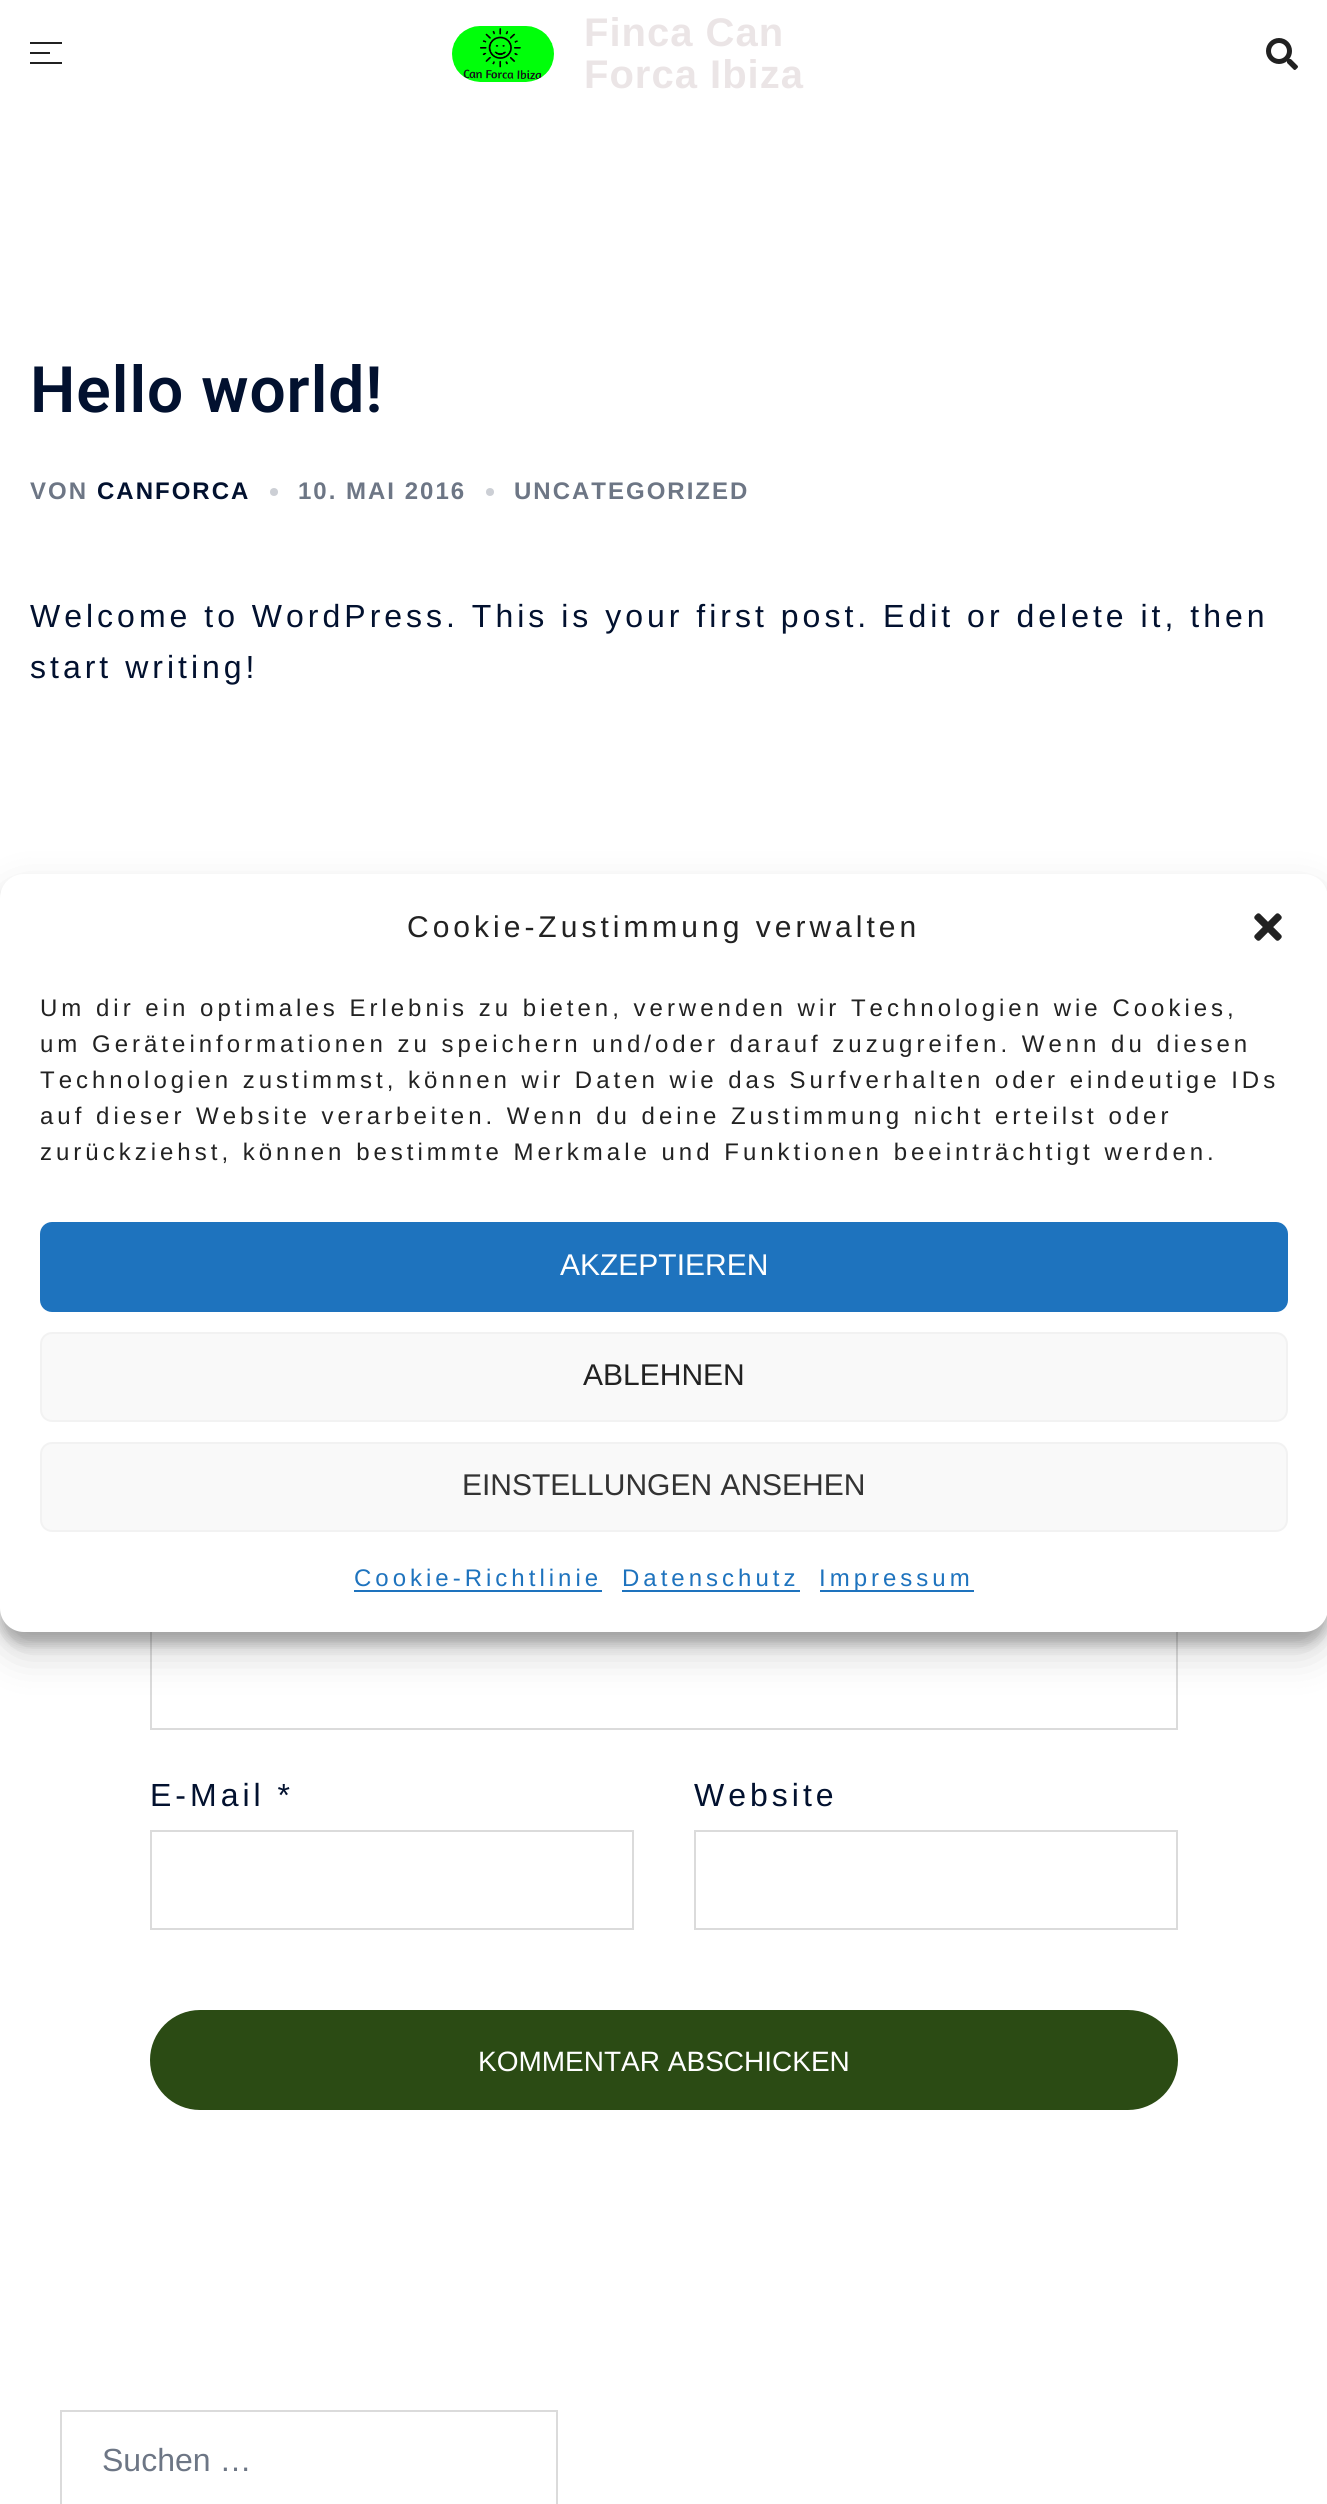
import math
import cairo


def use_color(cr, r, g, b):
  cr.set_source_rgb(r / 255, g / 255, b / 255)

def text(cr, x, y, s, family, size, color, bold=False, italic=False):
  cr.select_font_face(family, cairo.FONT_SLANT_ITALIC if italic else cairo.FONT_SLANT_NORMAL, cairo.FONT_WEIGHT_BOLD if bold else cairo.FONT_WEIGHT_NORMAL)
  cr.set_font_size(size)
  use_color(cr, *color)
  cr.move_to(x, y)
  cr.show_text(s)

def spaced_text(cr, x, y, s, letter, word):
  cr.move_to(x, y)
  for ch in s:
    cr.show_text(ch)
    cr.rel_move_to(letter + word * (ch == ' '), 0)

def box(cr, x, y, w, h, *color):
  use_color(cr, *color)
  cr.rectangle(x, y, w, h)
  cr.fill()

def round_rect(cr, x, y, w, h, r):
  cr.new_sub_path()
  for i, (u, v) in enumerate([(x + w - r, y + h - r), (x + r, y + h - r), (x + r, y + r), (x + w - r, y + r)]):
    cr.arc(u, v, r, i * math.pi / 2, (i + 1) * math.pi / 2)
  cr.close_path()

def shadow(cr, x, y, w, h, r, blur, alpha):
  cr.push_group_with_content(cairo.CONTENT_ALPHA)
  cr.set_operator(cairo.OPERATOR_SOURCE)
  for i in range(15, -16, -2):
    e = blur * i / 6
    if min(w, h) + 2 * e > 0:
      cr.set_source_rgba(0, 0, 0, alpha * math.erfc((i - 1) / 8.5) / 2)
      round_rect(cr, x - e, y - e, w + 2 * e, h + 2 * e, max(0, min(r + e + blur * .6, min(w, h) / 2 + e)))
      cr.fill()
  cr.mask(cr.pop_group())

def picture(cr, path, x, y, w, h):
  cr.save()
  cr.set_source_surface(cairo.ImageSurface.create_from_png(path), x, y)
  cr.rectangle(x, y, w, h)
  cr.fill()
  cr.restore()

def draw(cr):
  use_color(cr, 255, 255, 255)
  cr.paint()
  box(cr, 30, 42, 32, 2, 33, 33, 33)
  box(cr, 30, 52, 20, 2, 33, 33, 33)
  box(cr, 30, 62, 32, 2, 33, 33, 33)
  picture(cr, "img_01.png", 452, 26, 102, 56)
  picture(cr, "img_02.png", 1266, 38, 32, 32)
  use_color(cr, 204, 207, 213)
  cr.arc(274, 492, 4, 0, 2 * math.pi)
  cr.fill()
  cr.arc(490, 492, 4, 0, 2 * math.pi)
  cr.fill()
  cr.rectangle(151, 1631, 1026, 98)
  use_color(cr, 219, 219, 219)
  cr.stroke()
  cr.rectangle(151, 1831, 482, 98)
  cr.stroke()
  cr.rectangle(695, 1831, 482, 98)
  cr.stroke()
  use_color(cr, 43, 75, 20)
  round_rect(cr, 151, 2011, 1026, 98, 49)
  cr.fill_preserve()
  cr.stroke()
  cr.rectangle(61, 2411, 496, 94)
  use_color(cr, 219, 219, 219)
  cr.stroke()
  use_color(cr, 0, 0, 0)
  shadow(cr, 0, 886, 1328, 758, 24, 6, 0.23)
  shadow(cr, 0, 894, 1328, 758, 24, 20, 0.19)
  use_color(cr, 255, 255, 255)
  round_rect(cr, 0, 874, 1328, 758, 24)
  cr.fill()
  picture(cr, "img_03.png", 1254, 913, 28, 28)
  use_color(cr, 30, 115, 190)
  round_rect(cr, 41, 1223, 1246, 88, 11)
  cr.fill_preserve()
  cr.stroke()
  use_color(cr, 249, 249, 249)
  round_rect(cr, 41, 1333, 1246, 88, 11)
  cr.fill_preserve()
  use_color(cr, 242, 242, 242)
  cr.stroke()
  use_color(cr, 249, 249, 249)
  round_rect(cr, 41, 1443, 1246, 88, 11)
  cr.fill_preserve()
  use_color(cr, 242, 242, 242)
  cr.stroke()
  box(cr, 354, 1590, 248, 2, 30, 115, 190)
  box(cr, 622, 1590, 178, 2, 30, 115, 190)
  box(cr, 820, 1590, 154, 2, 30, 115, 190)
  cr.select_font_face("Liberation Sans", cairo.FONT_SLANT_NORMAL, cairo.FONT_WEIGHT_BOLD)
  cr.set_font_size(40)
  use_color(cr, 235, 229, 230)
  spaced_text(cr, 584, 46, "Finca Can", 1, 0)
  spaced_text(cr, 584, 88, "Forca Ibiza", 1, 0)
  cr.select_font_face("Roboto SemiBold")
  cr.set_font_size(64)
  use_color(cr, 2, 17, 47)
  spaced_text(cr, 30, 412, "Hello world!", 1, 0)
  cr.select_font_face("Liberation Sans", cairo.FONT_SLANT_NORMAL, cairo.FONT_WEIGHT_BOLD)
  cr.set_font_size(24)
  use_color(cr, 109, 118, 133)
  spaced_text(cr, 30, 499, "VON", 2, 0)
  use_color(cr, 2, 17, 47)
  spaced_text(cr, 97, 499, "CANFORCA", 2, 0)
  use_color(cr, 109, 118, 133)
  spaced_text(cr, 298, 499, "10. MAI 2016", 2, 0)
  spaced_text(cr, 514, 499, "UNCATEGORIZED", 2, 0)
  cr.select_font_face("Liberation Sans")
  cr.set_font_size(32)
  use_color(cr, 2, 17, 47)
  spaced_text(cr, 30, 627, "Welcome to WordPress. This is your first post. Edit or delete it, then", 4, 0)
  spaced_text(cr, 30, 678, "start writing!", 4, 0)
  spaced_text(cr, 150, 1806, "E-Mail *", 4, 0)
  spaced_text(cr, 694, 1806, "Website", 4, 0)
  text(cr, 478, 2071, "KOMMENTAR ABSCHICKEN", "Liberation Sans", 28, (255, 255, 255))
  text(cr, 102, 2471, "Suchen …", "Liberation Sans", 32, (109, 118, 133))
  cr.set_font_size(30)
  use_color(cr, 34, 34, 34)
  spaced_text(cr, 407, 937, "Cookie-Zustimmung verwalten", 4, 0)
  cr.set_font_size(24)
  spaced_text(cr, 40, 1016, "Um dir ein optimales Erlebnis zu bieten, verwenden wir Technologien wie Cookies,", 4, 0)
  spaced_text(cr, 40, 1052, "um Geräteinformationen zu speichern und/oder darauf zuzugreifen. Wenn du diesen", 4, 0)
  spaced_text(cr, 40, 1088, "Technologien zustimmst, können wir Daten wie das Surfverhalten oder eindeutige IDs", 4, 0)
  spaced_text(cr, 40, 1124, "auf dieser Website verarbeiten. Wenn du deine Zustimmung nicht erteilst oder", 4, 0)
  spaced_text(cr, 40, 1160, "zurückziehst, können bestimmte Merkmale und Funktionen beeinträchtigt werden.", 4, 0)
  text(cr, 560, 1275, "AKZEPTIEREN", "Liberation Sans", 30, (255, 255, 255))
  text(cr, 583, 1385, "ABLEHNEN", "Liberation Sans", 30, (34, 34, 34))
  text(cr, 462, 1495, "EINSTELLUNGEN ANSEHEN", "Liberation Sans", 30, (51, 51, 51))
  cr.set_font_size(24)
  use_color(cr, 30, 115, 190)
  spaced_text(cr, 354, 1586, "Cookie-Richtlinie", 4, 0)
  spaced_text(cr, 622, 1586, "Datenschutz", 4, 0)
  spaced_text(cr, 819, 1586, "Impressum", 4, 0)


surface = cairo.ImageSurface(cairo.FORMAT_RGB24, 1327, 2504)
cr = cairo.Context(surface)
options = cairo.FontOptions()
options.set_hint_metrics(cairo.HINT_METRICS_OFF)
options.set_hint_style(cairo.HINT_STYLE_NONE)
cr.set_font_options(options)
cr.set_miter_limit(4)
draw(cr)
surface.write_to_png("out.png")
